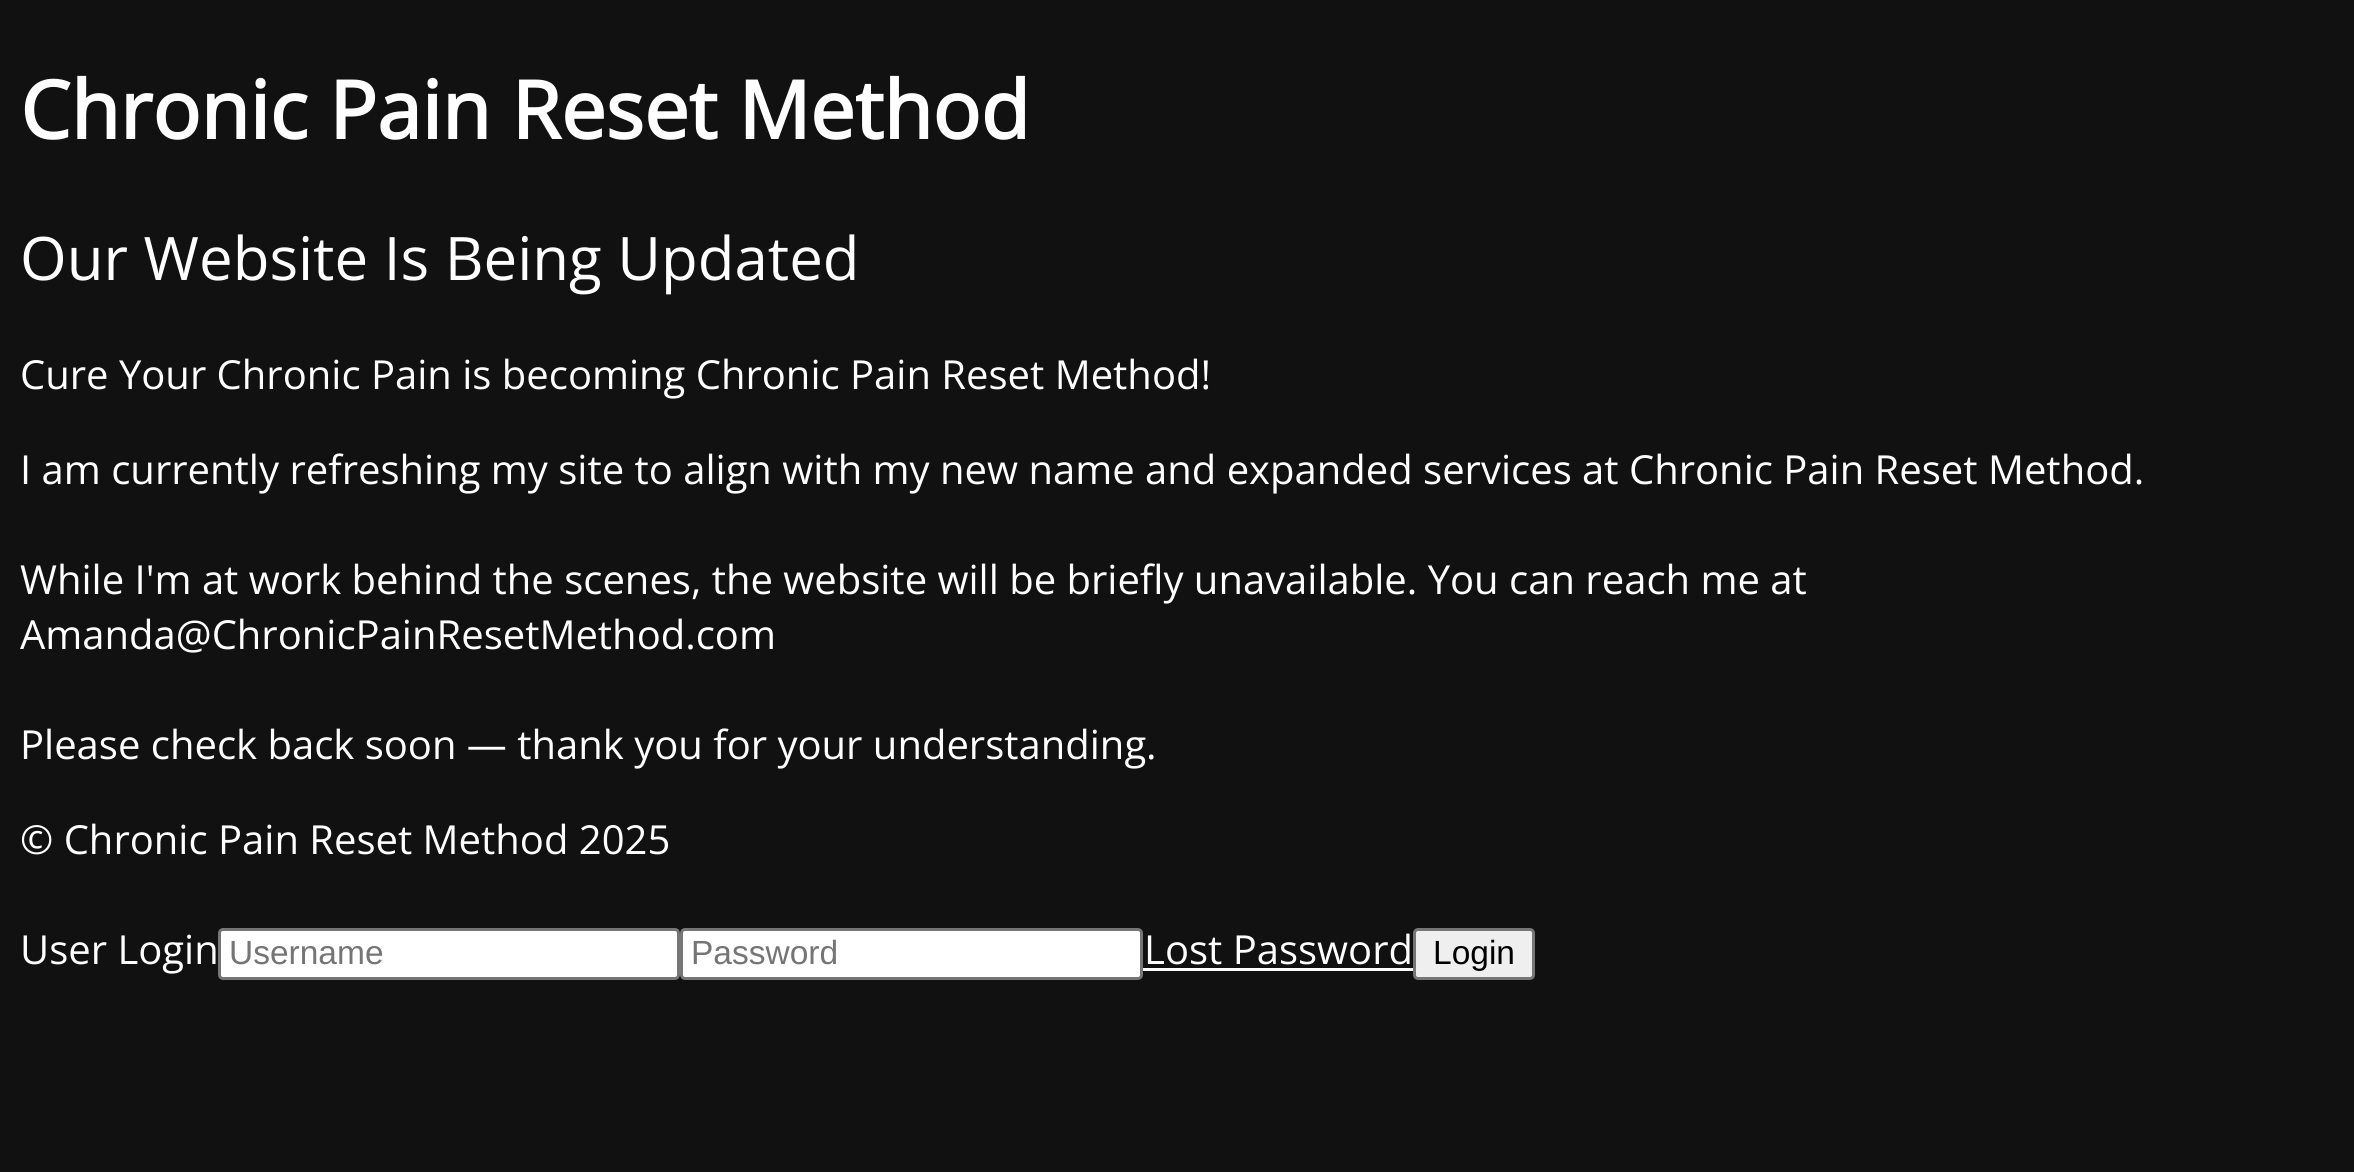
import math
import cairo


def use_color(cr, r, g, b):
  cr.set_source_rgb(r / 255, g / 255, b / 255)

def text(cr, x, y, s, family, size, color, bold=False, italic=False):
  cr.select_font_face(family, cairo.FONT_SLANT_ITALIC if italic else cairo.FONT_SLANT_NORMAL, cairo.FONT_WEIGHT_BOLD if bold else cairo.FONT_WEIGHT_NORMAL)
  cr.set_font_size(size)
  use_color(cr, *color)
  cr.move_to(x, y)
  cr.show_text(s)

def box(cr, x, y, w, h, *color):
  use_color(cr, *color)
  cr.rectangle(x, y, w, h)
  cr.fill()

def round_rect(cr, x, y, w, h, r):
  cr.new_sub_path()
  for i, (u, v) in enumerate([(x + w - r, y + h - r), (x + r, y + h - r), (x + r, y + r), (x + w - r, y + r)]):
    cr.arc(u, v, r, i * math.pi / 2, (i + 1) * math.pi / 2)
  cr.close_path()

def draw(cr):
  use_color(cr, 17, 17, 17)
  cr.paint()
  use_color(cr, 255, 255, 255)
  round_rect(cr, 219.5, 929.5, 459, 49, 3.5)
  cr.fill_preserve()
  use_color(cr, 118, 118, 118)
  cr.set_line_width(3)
  cr.stroke()
  use_color(cr, 255, 255, 255)
  round_rect(cr, 681.5, 929.5, 460, 49, 3.5)
  cr.fill_preserve()
  use_color(cr, 118, 118, 118)
  cr.stroke()
  box(cr, 1143, 968, 270, 3, 255, 255, 255)
  use_color(cr, 239, 239, 239)
  round_rect(cr, 1414.5, 929.5, 119, 49, 3.5)
  cr.fill_preserve()
  use_color(cr, 118, 118, 118)
  cr.stroke()
  text(cr, 20, 139, "Chronic Pain Reset Method", "Open Sans", 80, (255, 255, 255), bold=True)
  text(cr, 20, 280, "Our Website Is Being Updated", "Open Sans", 60, (255, 255, 255))
  text(cr, 20, 389, "Cure Your Chronic Pain is becoming Chronic Pain Reset Method!", "Open Sans", 40, (255, 255, 255))
  text(cr, 20, 484, "I am currently refreshing my site to align with my new name and expanded services at Chronic Pain Reset Method.", "Open Sans", 40, (255, 255, 255))
  text(cr, 20, 594, "While I'm at work behind the scenes, the website will be briefly unavailable. You can reach me at", "Open Sans", 40, (255, 255, 255))
  text(cr, 20, 649, "Amanda@ChronicPainResetMethod.com", "Open Sans", 40, (255, 255, 255))
  text(cr, 20, 759, "Please check back soon — thank you for your understanding.", "Open Sans", 40, (255, 255, 255))
  text(cr, 20, 854, "© Chronic Pain Reset Method 2025", "Open Sans", 40, (255, 255, 255))
  text(cr, 20, 964, "User Login", "Open Sans", 40, (255, 255, 255))
  text(cr, 229, 964, "Username", "Liberation Sans", 33.5, (117, 117, 117))
  text(cr, 691, 964, "Password", "Liberation Sans", 33.5, (117, 117, 117))
  text(cr, 1144, 964, "Lost Password", "Open Sans", 40, (255, 255, 255))
  text(cr, 1433, 964, "Login", "Liberation Sans", 33.5, (0, 0, 0))


surface = cairo.ImageSurface(cairo.FORMAT_RGB24, 2354, 1172)
cr = cairo.Context(surface)
options = cairo.FontOptions()
options.set_hint_metrics(cairo.HINT_METRICS_OFF)
options.set_hint_style(cairo.HINT_STYLE_NONE)
cr.set_font_options(options)
cr.set_miter_limit(4)
draw(cr)
surface.write_to_png("out.png")
